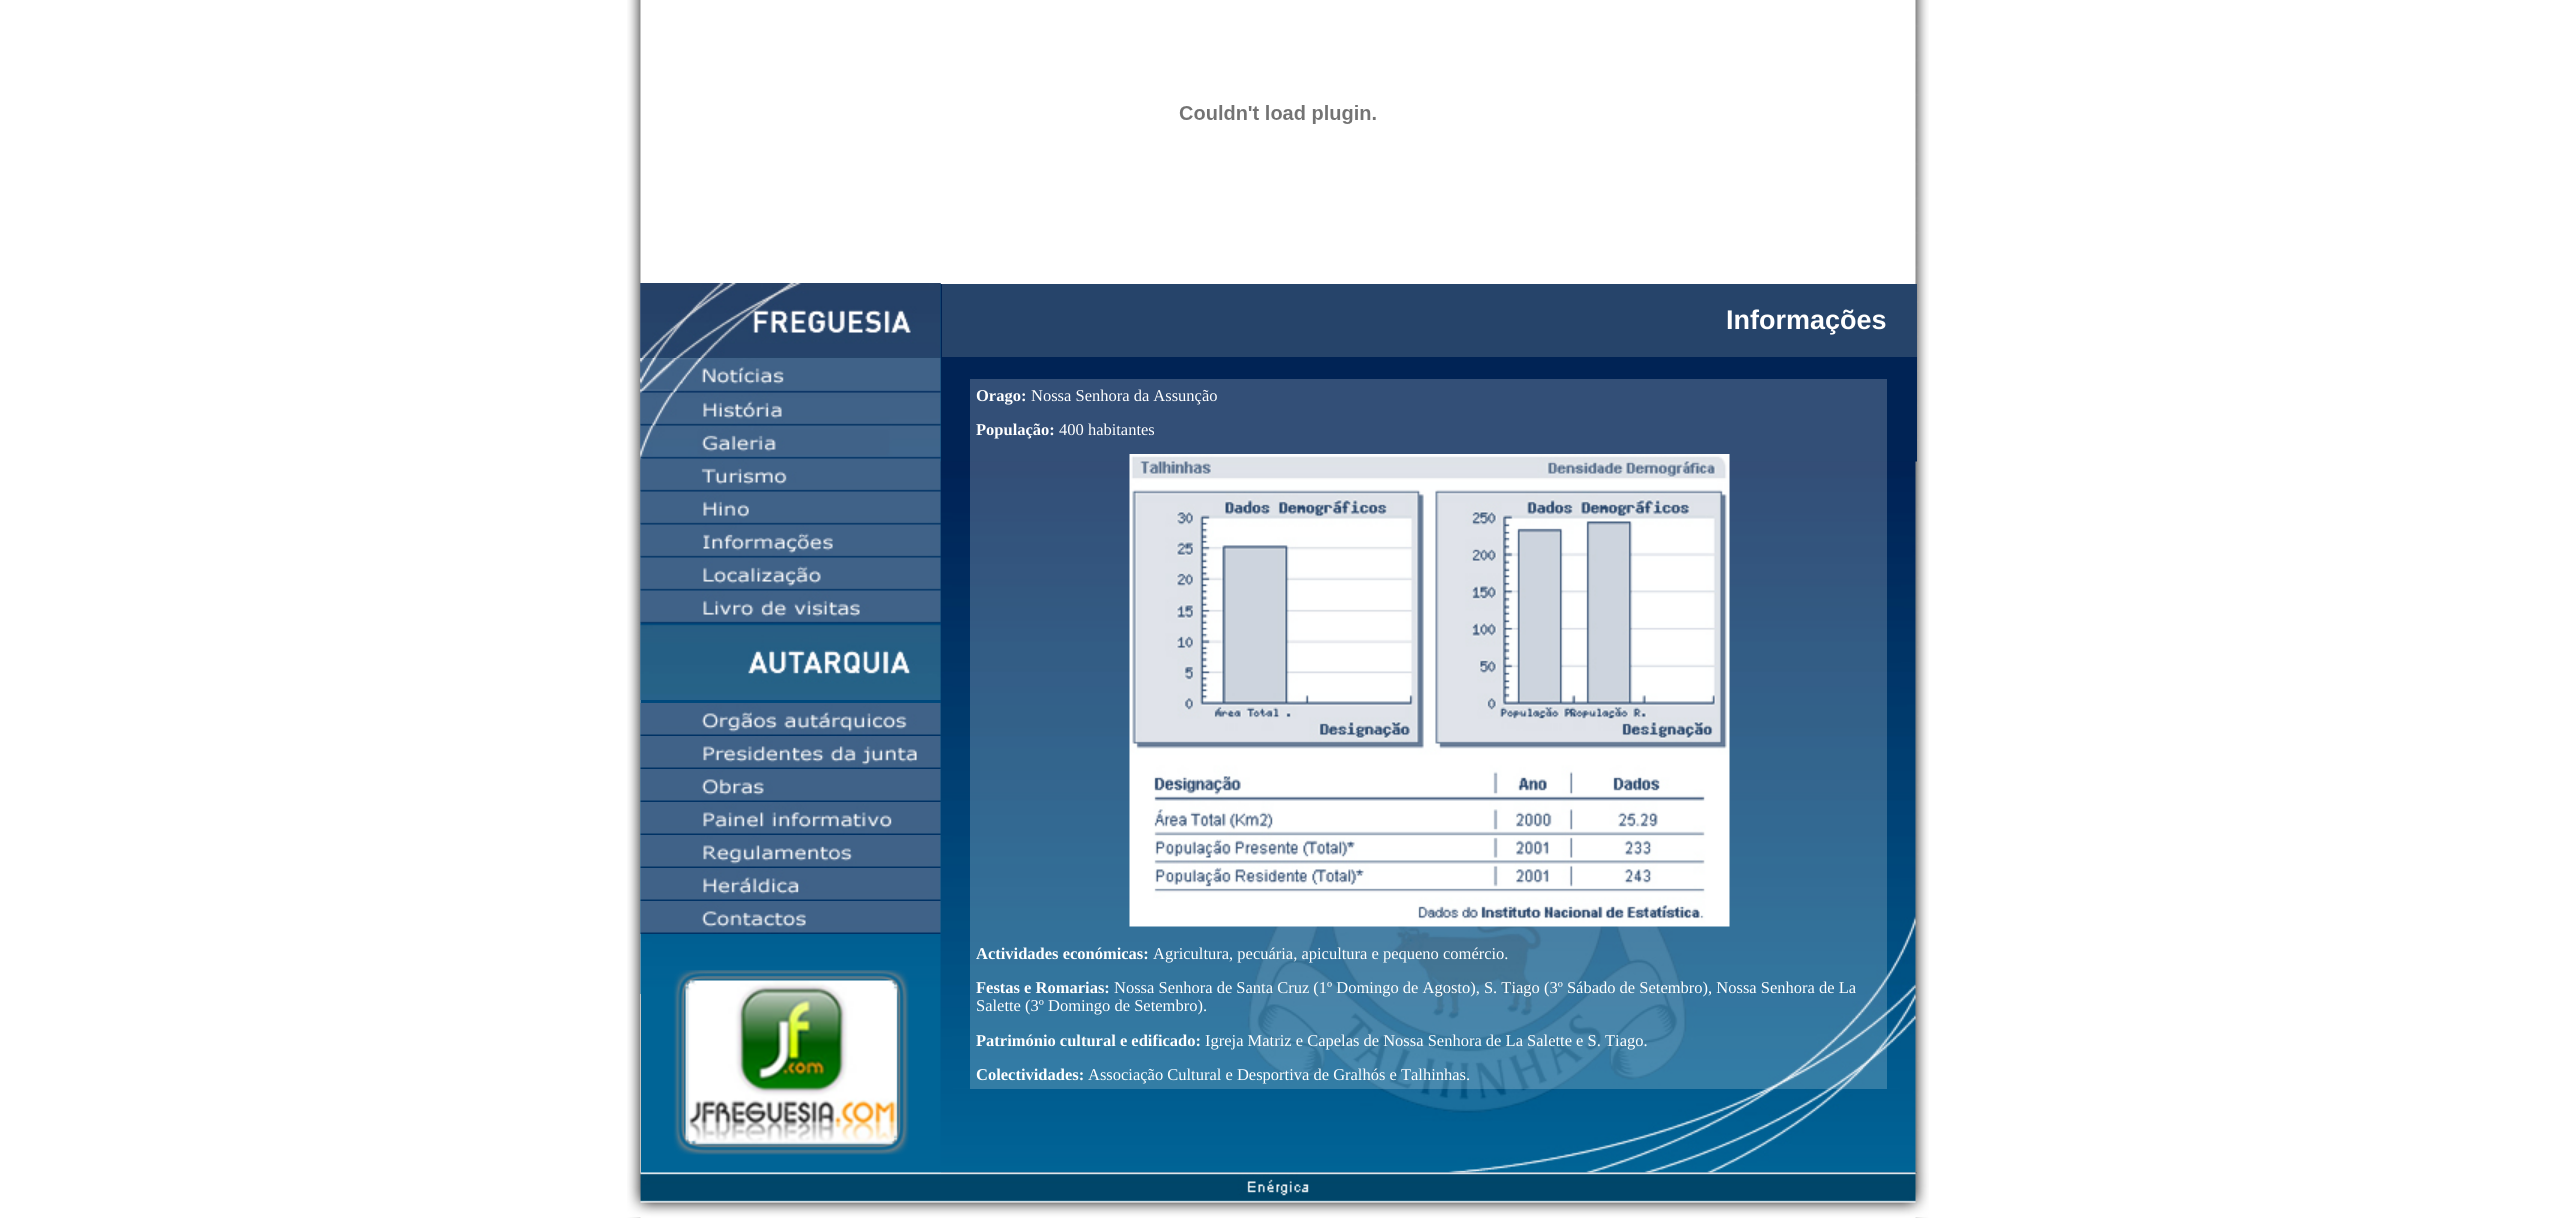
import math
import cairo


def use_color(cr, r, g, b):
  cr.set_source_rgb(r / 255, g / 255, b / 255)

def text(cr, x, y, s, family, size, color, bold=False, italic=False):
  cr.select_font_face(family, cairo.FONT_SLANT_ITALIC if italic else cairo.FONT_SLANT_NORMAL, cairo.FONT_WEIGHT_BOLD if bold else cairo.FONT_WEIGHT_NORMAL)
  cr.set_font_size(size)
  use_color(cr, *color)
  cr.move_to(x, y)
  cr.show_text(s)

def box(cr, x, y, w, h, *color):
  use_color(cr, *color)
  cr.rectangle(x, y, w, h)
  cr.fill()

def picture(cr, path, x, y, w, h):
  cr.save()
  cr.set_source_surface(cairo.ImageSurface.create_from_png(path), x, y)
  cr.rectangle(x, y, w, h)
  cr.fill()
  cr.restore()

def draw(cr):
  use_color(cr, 255, 255, 255)
  cr.paint()
  picture(cr, "img_01.png", 627, 0, 1302, 1218)
  picture(cr, "img_02.png", 1179, 105, 197, 19)
  box(cr, 641, 284, 300, 889, 0, 100, 150)
  picture(cr, "img_03.png", 640, 283, 301, 711)
  picture(cr, "img_04.png", 640, 283, 301, 75)
  picture(cr, "img_05.png", 640, 358, 301, 35)
  picture(cr, "img_06.png", 640, 392, 301, 34)
  picture(cr, "img_07.png", 640, 425, 301, 34)
  box(cr, 941, 284, 976, 889, 0, 35, 85)
  picture(cr, "img_22.png", 940, 461, 977, 712)
  picture(cr, "img_08.png", 640, 458, 301, 34)
  picture(cr, "img_09.png", 640, 491, 301, 34)
  picture(cr, "img_10.png", 640, 524, 301, 34)
  picture(cr, "img_11.png", 640, 557, 301, 34)
  picture(cr, "img_12.png", 640, 590, 301, 34)
  picture(cr, "img_13.png", 640, 623, 301, 77)
  picture(cr, "img_14.png", 640, 703, 301, 33)
  picture(cr, "img_15.png", 640, 736, 301, 33)
  picture(cr, "img_16.png", 640, 769, 301, 33)
  picture(cr, "img_17.png", 640, 802, 301, 33)
  picture(cr, "img_18.png", 640, 835, 301, 33)
  picture(cr, "img_19.png", 640, 868, 301, 33)
  picture(cr, "img_20.png", 640, 901, 301, 33)
  picture(cr, "img_21.png", 673, 970, 236, 185)
  box(cr, 942, 284, 975, 73, 38, 68, 106)
  cr.set_source_rgba(1, 1, 1, 0.2)
  cr.rectangle(970, 379, 917, 710)
  cr.fill()
  picture(cr, "img_23.png", 1129, 454, 601, 473)
  picture(cr, "img_24.png", 627, 1172, 1302, 46)
  text(cr, 1726, 329, "Informações", "Liberation Sans", 27, (255, 255, 255), bold=True)
  text(cr, 976, 401, "Orago:", "Liberation Serif", 16.5, (255, 255, 255), bold=True)
  text(cr, 1031, 401, "Nossa Senhora da Assunção", "Liberation Serif", 16.5, (255, 255, 255))
  text(cr, 976, 435, "População:", "Liberation Serif", 16.5, (255, 255, 255), bold=True)
  text(cr, 1059, 435, "400 habitantes", "Liberation Serif", 16.5, (255, 255, 255))
  text(cr, 976, 959, "Actividades económicas:", "Liberation Serif", 16.5, (255, 255, 255), bold=True)
  text(cr, 1153, 959, "Agricultura, pecuária, apicultura e pequeno comércio.", "Liberation Serif", 16.5, (255, 255, 255))
  text(cr, 976, 993, "Festas e Romarias:", "Liberation Serif", 16.5, (255, 255, 255), bold=True)
  text(cr, 1114, 993, "Nossa Senhora de Santa Cruz (1º Domingo de Agosto), S. Tiago (3º Sábado de Setembro), Nossa Senhora de La", "Liberation Serif", 16.5, (255, 255, 255))
  text(cr, 976, 1011, "Salette (3º Domingo de Setembro).", "Liberation Serif", 16.5, (255, 255, 255))
  text(cr, 976, 1046, "Património cultural e edificado:", "Liberation Serif", 16.5, (255, 255, 255), bold=True)
  text(cr, 1205, 1046, "Igreja Matriz e Capelas de Nossa Senhora de La Salette e S. Tiago.", "Liberation Serif", 16.5, (255, 255, 255))
  text(cr, 976, 1080, "Colectividades:", "Liberation Serif", 16.5, (255, 255, 255), bold=True)
  text(cr, 1088, 1080, "Associação Cultural e Desportiva de Gralhós e Talhinhas.", "Liberation Serif", 16.5, (255, 255, 255))


surface = cairo.ImageSurface(cairo.FORMAT_RGB24, 2555, 1218)
cr = cairo.Context(surface)
options = cairo.FontOptions()
options.set_hint_metrics(cairo.HINT_METRICS_OFF)
options.set_hint_style(cairo.HINT_STYLE_NONE)
cr.set_font_options(options)
cr.set_miter_limit(4)
draw(cr)
surface.write_to_png("out.png")
